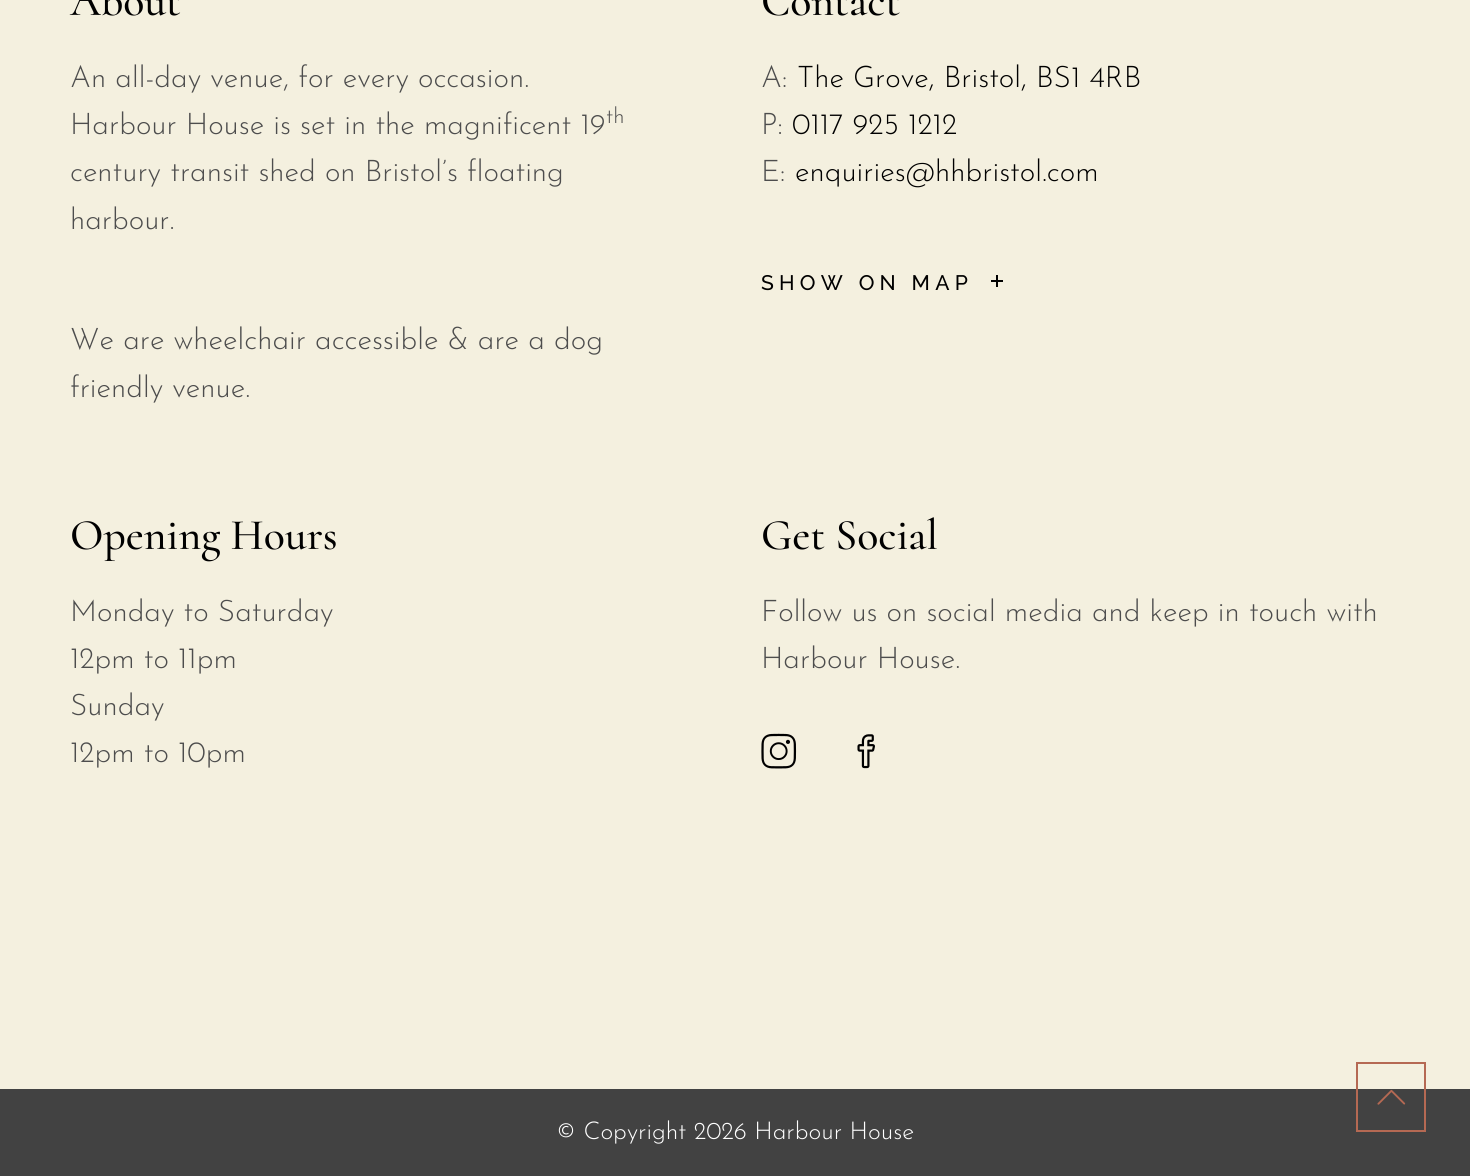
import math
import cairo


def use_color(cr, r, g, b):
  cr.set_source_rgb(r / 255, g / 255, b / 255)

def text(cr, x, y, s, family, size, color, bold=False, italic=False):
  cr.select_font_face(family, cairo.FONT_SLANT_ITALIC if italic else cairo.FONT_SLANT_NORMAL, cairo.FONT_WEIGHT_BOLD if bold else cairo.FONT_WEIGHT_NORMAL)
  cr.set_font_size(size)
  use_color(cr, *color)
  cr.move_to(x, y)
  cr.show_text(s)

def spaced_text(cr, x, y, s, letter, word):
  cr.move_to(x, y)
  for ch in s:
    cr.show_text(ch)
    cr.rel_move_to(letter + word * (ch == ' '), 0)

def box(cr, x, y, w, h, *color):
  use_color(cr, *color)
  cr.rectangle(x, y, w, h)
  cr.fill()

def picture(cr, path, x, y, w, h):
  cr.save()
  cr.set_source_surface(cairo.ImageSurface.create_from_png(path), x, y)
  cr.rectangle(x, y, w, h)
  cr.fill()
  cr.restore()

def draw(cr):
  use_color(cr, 244, 240, 223)
  cr.paint()
  box(cr, 991, 280, 12, 2, 0, 0, 0)
  box(cr, 996, 275, 2, 12, 0, 0, 0)
  picture(cr, "img_01.png", 761, 733, 36, 36)
  picture(cr, "img_02.png", 857, 734, 18, 35)
  box(cr, 0, 1089, 1470, 87, 66, 66, 66)
  cr.rectangle(1357, 1063, 68, 68)
  use_color(cr, 181, 105, 83)
  cr.stroke()
  picture(cr, "img_03.png", 1377, 1089, 29, 16)
  text(cr, 70, 15, "About", "Cormorant Medium", 43.75, (0, 0, 0))
  text(cr, 70, 87, "An all-day venue, for every occasion.", "Josefin Sans Light", 29.75, (77, 77, 77))
  text(cr, 70, 134, "Harbour House is set in the magnificent 19", "Josefin Sans Light", 29.75, (77, 77, 77))
  text(cr, 606, 123, "th", "Josefin Sans Light", 22, (77, 77, 77))
  text(cr, 70, 181, "century transit shed on Bristol’s floating", "Josefin Sans Light", 29.75, (77, 77, 77))
  text(cr, 70, 229, "harbour.", "Josefin Sans Light", 29.75, (77, 77, 77))
  text(cr, 70, 349, "We are wheelchair accessible & are a dog", "Josefin Sans Light", 29.75, (77, 77, 77))
  text(cr, 70, 397, "friendly venue.", "Josefin Sans Light", 29.75, (77, 77, 77))
  text(cr, 761, 15, "Contact", "Cormorant Medium", 43.75, (0, 0, 0))
  text(cr, 761, 87, "A:", "Josefin Sans Light", 29.75, (77, 77, 77))
  text(cr, 797, 87, "The Grove, Bristol, BS1 4RB", "Josefin Sans Light", 29.75, (0, 0, 0))
  text(cr, 761, 134, "P:", "Josefin Sans Light", 29.75, (77, 77, 77))
  text(cr, 792, 134, "0117 925 1212", "Josefin Sans Light", 29.75, (0, 0, 0))
  text(cr, 761, 181, "E:", "Josefin Sans Light", 29.75, (77, 77, 77))
  text(cr, 795, 181, "enquiries@hhbristol.com", "Josefin Sans Light", 29.75, (0, 0, 0))
  cr.select_font_face("Raleway Medium")
  cr.set_font_size(21)
  spaced_text(cr, 761, 290, "SHOW ON MAP", 5.25, 0)
  text(cr, 70, 549, "Opening Hours", "Cormorant Medium", 43.75, (0, 0, 0))
  text(cr, 70, 621, "Monday to Saturday", "Josefin Sans Light", 29.75, (77, 77, 77))
  text(cr, 70, 668, "12pm to 11pm", "Josefin Sans Light", 29.75, (77, 77, 77))
  text(cr, 70, 715, "Sunday", "Josefin Sans Light", 29.75, (77, 77, 77))
  text(cr, 70, 762, "12pm to 10pm", "Josefin Sans Light", 29.75, (77, 77, 77))
  text(cr, 761, 549, "Get Social", "Cormorant Medium", 43.75, (0, 0, 0))
  text(cr, 761, 621, "Follow us on social media and keep in touch with", "Josefin Sans Light", 29.75, (77, 77, 77))
  text(cr, 761, 668, "Harbour House.", "Josefin Sans Light", 29.75, (77, 77, 77))
  text(cr, 556, 1139, "© Copyright 2026 Harbour House", "Josefin Sans Light", 24.5, (255, 255, 255))


surface = cairo.ImageSurface(cairo.FORMAT_RGB24, 1470, 1176)
cr = cairo.Context(surface)
options = cairo.FontOptions()
options.set_hint_metrics(cairo.HINT_METRICS_OFF)
options.set_hint_style(cairo.HINT_STYLE_NONE)
cr.set_font_options(options)
cr.set_miter_limit(4)
draw(cr)
surface.write_to_png("out.png")
